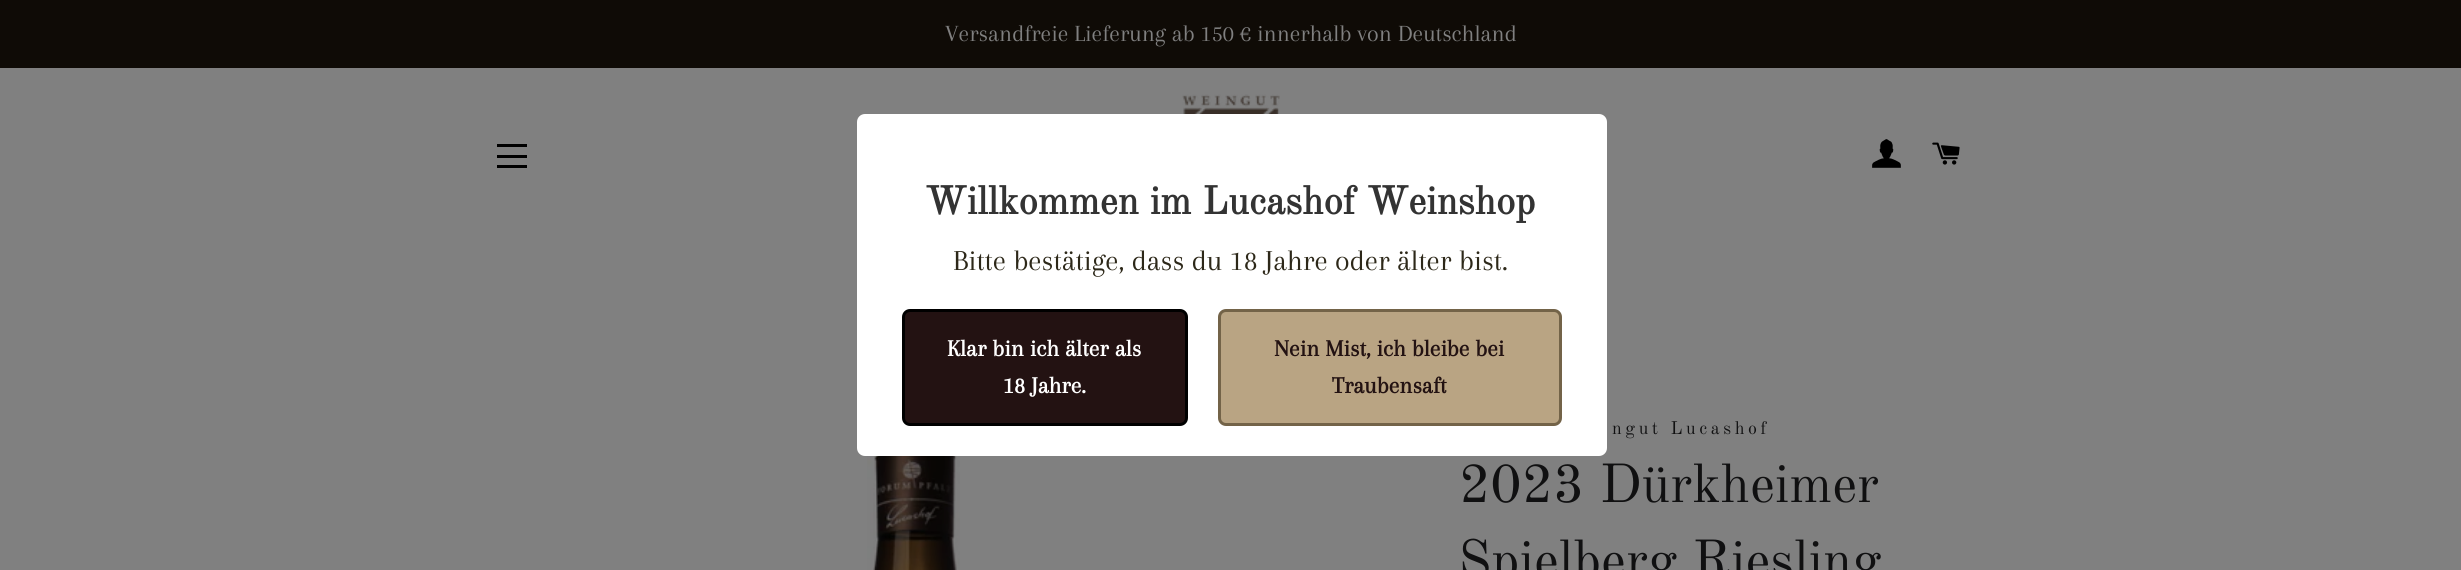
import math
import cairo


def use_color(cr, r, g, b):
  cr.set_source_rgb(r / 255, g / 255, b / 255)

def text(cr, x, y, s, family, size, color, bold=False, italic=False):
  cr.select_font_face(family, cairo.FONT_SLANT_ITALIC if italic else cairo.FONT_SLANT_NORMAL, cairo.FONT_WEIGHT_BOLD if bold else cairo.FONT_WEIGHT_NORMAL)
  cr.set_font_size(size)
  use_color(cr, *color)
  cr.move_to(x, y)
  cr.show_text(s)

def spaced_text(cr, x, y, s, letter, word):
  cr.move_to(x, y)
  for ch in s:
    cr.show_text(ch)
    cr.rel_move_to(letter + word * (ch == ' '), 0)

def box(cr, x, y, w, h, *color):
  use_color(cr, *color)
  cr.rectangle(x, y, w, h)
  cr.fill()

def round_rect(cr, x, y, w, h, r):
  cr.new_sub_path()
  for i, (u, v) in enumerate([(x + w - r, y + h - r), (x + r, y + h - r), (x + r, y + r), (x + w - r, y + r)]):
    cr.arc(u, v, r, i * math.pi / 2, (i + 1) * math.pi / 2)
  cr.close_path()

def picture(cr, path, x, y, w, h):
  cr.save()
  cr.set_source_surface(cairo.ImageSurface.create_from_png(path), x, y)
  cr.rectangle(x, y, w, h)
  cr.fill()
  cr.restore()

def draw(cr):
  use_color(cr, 128, 128, 128)
  cr.paint()
  box(cr, 0, 0, 2461, 68, 15, 11, 6)
  picture(cr, "img_01.png", 1182, 94, 98, 20)
  box(cr, 497, 144, 30, 3, 0, 0, 0)
  box(cr, 497, 155, 30, 3, 0, 0, 0)
  box(cr, 497, 165, 30, 3, 0, 0, 0)
  picture(cr, "img_02.png", 1872, 139, 29, 29)
  picture(cr, "img_03.png", 1932, 142, 28, 23)
  use_color(cr, 255, 255, 255)
  round_rect(cr, 857, 114, 750, 342, 8)
  cr.fill()
  use_color(cr, 35, 18, 18)
  round_rect(cr, 903.5, 310.5, 283, 114, 6.5)
  cr.fill_preserve()
  use_color(cr, 0, 0, 0)
  cr.set_line_width(3)
  cr.stroke()
  use_color(cr, 185, 164, 131)
  round_rect(cr, 1219.5, 310.5, 341, 114, 6.5)
  cr.fill_preserve()
  use_color(cr, 115, 99, 72)
  cr.stroke()
  picture(cr, "img_04.png", 867, 456, 93, 114)
  text(cr, 945, 41, "Versandfreie Lieferung ab 150 € innerhalb von Deutschland", "Arapey", 24, (128, 128, 128))
  text(cr, 925, 214, "Willkommen im Lucashof Weinshop", "Old Standard TT", 39, (51, 51, 51), bold=True)
  text(cr, 953, 270, "Bitte bestätige, dass du 18 Jahre oder älter bist.", "Arapey", 30, (45, 40, 25))
  text(cr, 947, 356, "Klar bin ich älter als", "Arapey", 24, (255, 255, 255), bold=True)
  text(cr, 1003, 393, "18 Jahre.", "Arapey", 24, (255, 255, 255), bold=True)
  text(cr, 1274, 356, "Nein Mist, ich bleibe bei", "Arapey", 24, (35, 18, 18), bold=True)
  text(cr, 1332, 393, "Traubensaft", "Arapey", 24, (35, 18, 18), bold=True)
  cr.select_font_face("Old Standard TT")
  cr.set_font_size(18)
  use_color(cr, 16, 16, 17)
  spaced_text(cr, 1612, 434, "ngut Lucashof", 3.6, 0)
  text(cr, 1459, 502, "2023 Dürkheimer", "Old Standard TT", 54, (16, 16, 17))
  text(cr, 1458, 578, "Spielberg Riesling", "Old Standard TT", 54, (16, 16, 17))


surface = cairo.ImageSurface(cairo.FORMAT_RGB24, 2461, 570)
cr = cairo.Context(surface)
options = cairo.FontOptions()
options.set_hint_metrics(cairo.HINT_METRICS_OFF)
options.set_hint_style(cairo.HINT_STYLE_NONE)
cr.set_font_options(options)
cr.set_miter_limit(4)
draw(cr)
surface.write_to_png("out.png")
